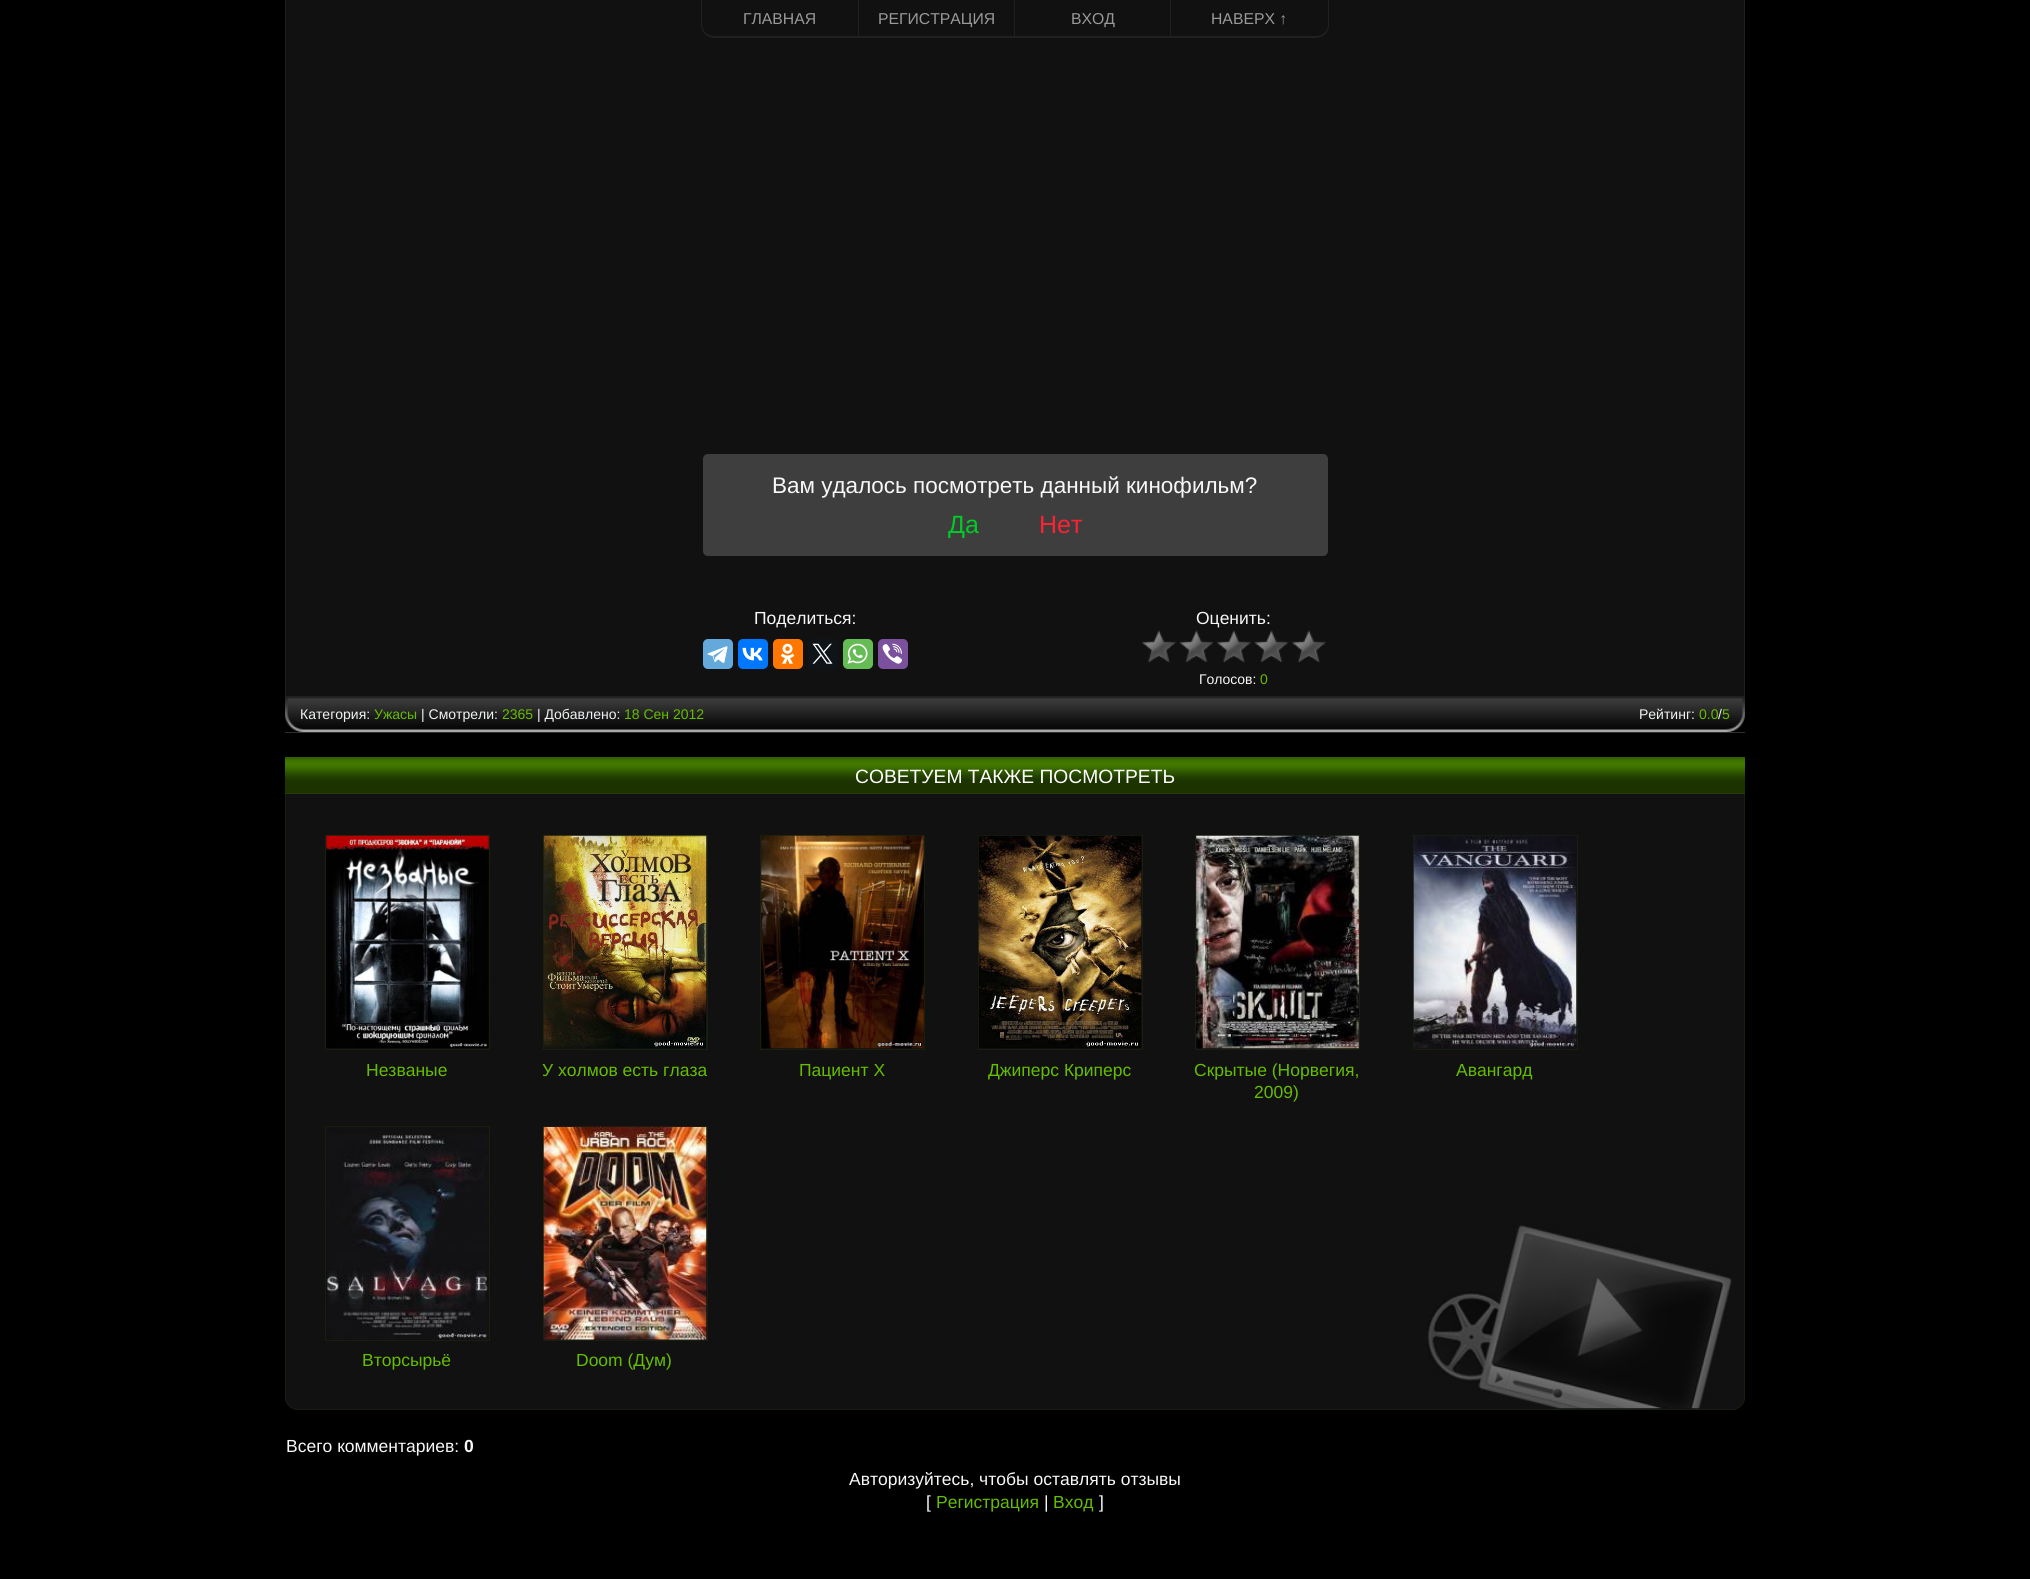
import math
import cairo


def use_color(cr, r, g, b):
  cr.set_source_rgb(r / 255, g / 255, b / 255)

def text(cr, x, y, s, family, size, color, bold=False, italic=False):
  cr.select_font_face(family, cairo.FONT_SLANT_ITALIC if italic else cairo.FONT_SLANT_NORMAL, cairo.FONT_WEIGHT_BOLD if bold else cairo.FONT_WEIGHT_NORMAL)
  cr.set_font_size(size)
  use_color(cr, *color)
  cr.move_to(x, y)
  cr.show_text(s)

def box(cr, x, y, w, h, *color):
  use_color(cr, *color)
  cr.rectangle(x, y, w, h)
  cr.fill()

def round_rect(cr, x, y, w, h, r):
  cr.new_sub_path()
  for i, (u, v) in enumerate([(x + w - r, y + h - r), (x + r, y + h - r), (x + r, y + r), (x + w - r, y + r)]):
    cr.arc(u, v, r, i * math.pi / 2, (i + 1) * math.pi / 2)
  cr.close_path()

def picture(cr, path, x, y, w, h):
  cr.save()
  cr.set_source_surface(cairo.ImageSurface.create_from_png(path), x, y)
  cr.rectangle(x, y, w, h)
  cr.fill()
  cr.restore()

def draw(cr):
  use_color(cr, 0, 0, 0)
  cr.paint()
  box(cr, 286, 0, 1458, 696, 17, 17, 17)
  use_color(cr, 32, 32, 32)
  cr.set_fill_rule(cairo.FILL_RULE_EVEN_ODD)
  cr.new_path()
  cr.move_to(304, -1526)
  cr.line_to(1726, -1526)
  cr.curve_to(1737, -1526, 1745, -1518, 1745, -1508)
  cr.line_to(1745, 696)
  cr.line_to(285, 696)
  cr.line_to(285, -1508)
  cr.curve_to(285, -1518, 293, -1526, 304, -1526)
  cr.close_path()
  cr.move_to(304, -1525)
  cr.line_to(1726, -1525)
  cr.curve_to(1736, -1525, 1744, -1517, 1744, -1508)
  cr.line_to(1744, 696)
  cr.line_to(286, 696)
  cr.line_to(286, -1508)
  cr.curve_to(286, -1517, 294, -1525, 304, -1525)
  cr.close_path()
  cr.fill()
  cr.new_path()
  cr.move_to(701, 0)
  cr.line_to(1329, 0)
  cr.line_to(1329, 25)
  cr.curve_to(1329, 32, 1323, 38, 1316, 38)
  cr.line_to(714, 38)
  cr.curve_to(707, 38, 701, 32, 701, 25)
  cr.close_path()
  cr.move_to(702, 0)
  cr.line_to(1328, 0)
  cr.line_to(1328, 25)
  cr.curve_to(1328, 31, 1322, 36, 1316, 36)
  cr.line_to(714, 36)
  cr.curve_to(708, 36, 702, 31, 702, 25)
  cr.close_path()
  cr.fill()
  box(cr, 858, 0, 1, 38, 32, 32, 32)
  box(cr, 1014, 0, 1, 38, 32, 32, 32)
  box(cr, 1170, 0, 1, 38, 32, 32, 32)
  use_color(cr, 62, 62, 62)
  round_rect(cr, 703, 454, 625, 102, 5)
  cr.fill()
  use_color(cr, 100, 169, 220)
  round_rect(cr, 703, 639, 30, 30, 5)
  cr.fill()
  picture(cr, "img_01.png", 707, 646, 21, 17)
  use_color(cr, 0, 119, 255)
  round_rect(cr, 738, 639, 30, 30, 5)
  cr.fill()
  picture(cr, "img_02.png", 742, 647, 21, 14)
  use_color(cr, 255, 119, 0)
  round_rect(cr, 773, 639, 30, 30, 5)
  cr.fill()
  picture(cr, "img_03.png", 780, 643, 15, 21)
  use_color(cr, 15, 20, 25)
  round_rect(cr, 808, 639, 30, 30, 5)
  cr.fill()
  picture(cr, "img_04.png", 812, 643, 21, 21)
  use_color(cr, 101, 188, 84)
  round_rect(cr, 843, 639, 30, 30, 5)
  cr.fill()
  picture(cr, "img_05.png", 847, 643, 21, 21)
  use_color(cr, 123, 81, 157)
  round_rect(cr, 878, 639, 30, 30, 5)
  cr.fill()
  picture(cr, "img_06.png", 882, 643, 20, 21)
  picture(cr, "img_07.png", 1142, 630, 184, 33)
  box(cr, 285, 732, 1460, 1, 47, 47, 47)
  picture(cr, "img_08.png", 285, 696, 1460, 36)
  picture(cr, "img_09.png", 285, 698, 18, 34)
  picture(cr, "img_10.png", 1727, 698, 18, 34)
  box(cr, 285, 793, 1460, 1, 38, 70, 0)
  picture(cr, "img_11.png", 285, 757, 1460, 37)
  use_color(cr, 17, 17, 17)
  cr.new_path()
  cr.move_to(285, 794)
  cr.line_to(1745, 794)
  cr.line_to(1745, 1397)
  cr.curve_to(1745, 1404, 1739, 1410, 1732, 1410)
  cr.line_to(298, 1410)
  cr.curve_to(291, 1410, 285, 1404, 285, 1397)
  cr.close_path()
  cr.fill()
  picture(cr, "img_12.png", 1427, 1225, 305, 184)
  use_color(cr, 23, 32, 14)
  cr.new_path()
  cr.move_to(285, 794)
  cr.line_to(1745, 794)
  cr.line_to(1745, 1398)
  cr.curve_to(1745, 1404, 1739, 1410, 1732, 1410)
  cr.line_to(298, 1410)
  cr.curve_to(291, 1410, 285, 1404, 285, 1398)
  cr.close_path()
  cr.move_to(286, 794)
  cr.line_to(1744, 794)
  cr.line_to(1744, 1398)
  cr.curve_to(1744, 1404, 1739, 1409, 1732, 1409)
  cr.line_to(298, 1409)
  cr.curve_to(291, 1409, 286, 1404, 286, 1398)
  cr.close_path()
  cr.fill()
  cr.rectangle(325.5, 835.5, 164, 214)
  cr.set_line_width(1)
  cr.stroke()
  picture(cr, "img_13.png", 326, 835, 163, 214)
  cr.rectangle(543.5, 835.5, 164, 214)
  cr.stroke()
  picture(cr, "img_14.png", 543, 835, 164, 214)
  cr.rectangle(760.5, 835.5, 164, 214)
  cr.stroke()
  picture(cr, "img_15.png", 761, 835, 163, 214)
  cr.rectangle(978.5, 835.5, 164, 214)
  cr.stroke()
  picture(cr, "img_16.png", 978, 835, 164, 214)
  cr.rectangle(1195.5, 835.5, 164, 214)
  cr.stroke()
  picture(cr, "img_17.png", 1196, 835, 163, 214)
  cr.rectangle(1413.5, 835.5, 164, 214)
  cr.stroke()
  picture(cr, "img_18.png", 1413, 835, 164, 214)
  cr.rectangle(325.5, 1126.5, 164, 214)
  cr.stroke()
  picture(cr, "img_19.png", 326, 1134, 163, 206)
  cr.rectangle(543.5, 1126.5, 164, 214)
  cr.stroke()
  picture(cr, "img_20.png", 543, 1127, 164, 213)
  text(cr, 743, 24, "ГЛАВНАЯ", "Liberation Sans", 15.75, (153, 153, 153))
  text(cr, 878, 24, "РЕГИСТРАЦИЯ", "Liberation Sans", 15.75, (153, 153, 153))
  text(cr, 1071, 24, "ВХОД", "Liberation Sans", 15.75, (153, 153, 153))
  text(cr, 1211, 24, "НАВЕРХ ↑", "Liberation Sans", 15.75, (153, 153, 153))
  text(cr, 772, 493, "Вам удалось посмотреть данный кинофильм?", "Liberation Sans", 22.5, (248, 248, 248))
  text(cr, 948, 533, "Да", "Liberation Sans", 25, (0, 202, 37))
  text(cr, 1039, 533, "Нет", "Liberation Sans", 25, (255, 32, 51))
  text(cr, 754, 624, "Поделиться:", "Liberation Sans", 17.5, (248, 248, 248))
  text(cr, 1196, 624, "Оценить:", "Liberation Sans", 17.5, (248, 248, 248))
  text(cr, 1199, 684, "Голосов:", "Liberation Sans", 14, (248, 248, 248))
  text(cr, 1260, 684, "0", "Liberation Sans", 14, (102, 188, 1))
  text(cr, 300, 719, "Категория:", "Liberation Sans", 14, (240, 242, 243))
  text(cr, 374, 719, "Ужасы", "Liberation Sans", 14, (102, 188, 1))
  text(cr, 421, 719, "| Смотрели:", "Liberation Sans", 14, (240, 242, 243))
  text(cr, 502, 719, "2365", "Liberation Sans", 14, (102, 188, 1))
  text(cr, 537, 719, "| Добавлено:", "Liberation Sans", 14, (240, 242, 243))
  text(cr, 624, 719, "18 Сен 2012", "Liberation Sans", 14, (102, 188, 1))
  text(cr, 1639, 719, "Рейтинг:", "Liberation Sans", 14, (240, 242, 243))
  text(cr, 1699, 719, "0.0", "Liberation Sans", 14, (102, 188, 1))
  text(cr, 1718, 719, "/", "Liberation Sans", 14, (240, 242, 243))
  text(cr, 1722, 719, "5", "Liberation Sans", 14, (102, 188, 1))
  text(cr, 855, 783, "СОВЕТУЕМ ТАКЖЕ ПОСМОТРЕТЬ", "Liberation Sans", 19.25, (255, 255, 255))
  text(cr, 366, 1076, "Незваные", "Liberation Sans", 17.5, (102, 188, 1))
  text(cr, 542, 1076, "У холмов есть глаза", "Liberation Sans", 17.5, (102, 188, 1))
  text(cr, 799, 1076, "Пациент Х", "Liberation Sans", 17.5, (102, 188, 1))
  text(cr, 988, 1076, "Джиперс Криперс", "Liberation Sans", 17.5, (102, 188, 1))
  text(cr, 1194, 1076, "Скрытые (Норвегия,", "Liberation Sans", 17.5, (102, 188, 1))
  text(cr, 1254, 1098, "2009)", "Liberation Sans", 17.5, (102, 188, 1))
  text(cr, 1456, 1076, "Авангард", "Liberation Sans", 17.5, (102, 188, 1))
  text(cr, 362, 1366, "Вторсырьё", "Liberation Sans", 17.5, (102, 188, 1))
  text(cr, 576, 1366, "Doom (Дум)", "Liberation Sans", 17.5, (102, 188, 1))
  text(cr, 286, 1452, "Всего комментариев:", "Liberation Sans", 17.5, (248, 248, 248))
  text(cr, 464, 1452, "0", "Liberation Sans", 17.5, (248, 248, 248), bold=True)
  text(cr, 849, 1485, "Авторизуйтесь, чтобы оставлять отзывы", "Liberation Sans", 17.5, (248, 248, 248))
  text(cr, 926, 1508, "[", "Liberation Sans", 17.5, (248, 248, 248))
  text(cr, 936, 1508, "Регистрация", "Liberation Sans", 17.5, (102, 188, 1))
  text(cr, 1044, 1508, "|", "Liberation Sans", 17.5, (248, 248, 248))
  text(cr, 1053, 1508, "Вход", "Liberation Sans", 17.5, (102, 188, 1))
  text(cr, 1099, 1508, "]", "Liberation Sans", 17.5, (248, 248, 248))


surface = cairo.ImageSurface(cairo.FORMAT_RGB24, 2030, 1579)
cr = cairo.Context(surface)
options = cairo.FontOptions()
options.set_hint_metrics(cairo.HINT_METRICS_OFF)
options.set_hint_style(cairo.HINT_STYLE_NONE)
cr.set_font_options(options)
cr.set_miter_limit(4)
draw(cr)
surface.write_to_png("out.png")
